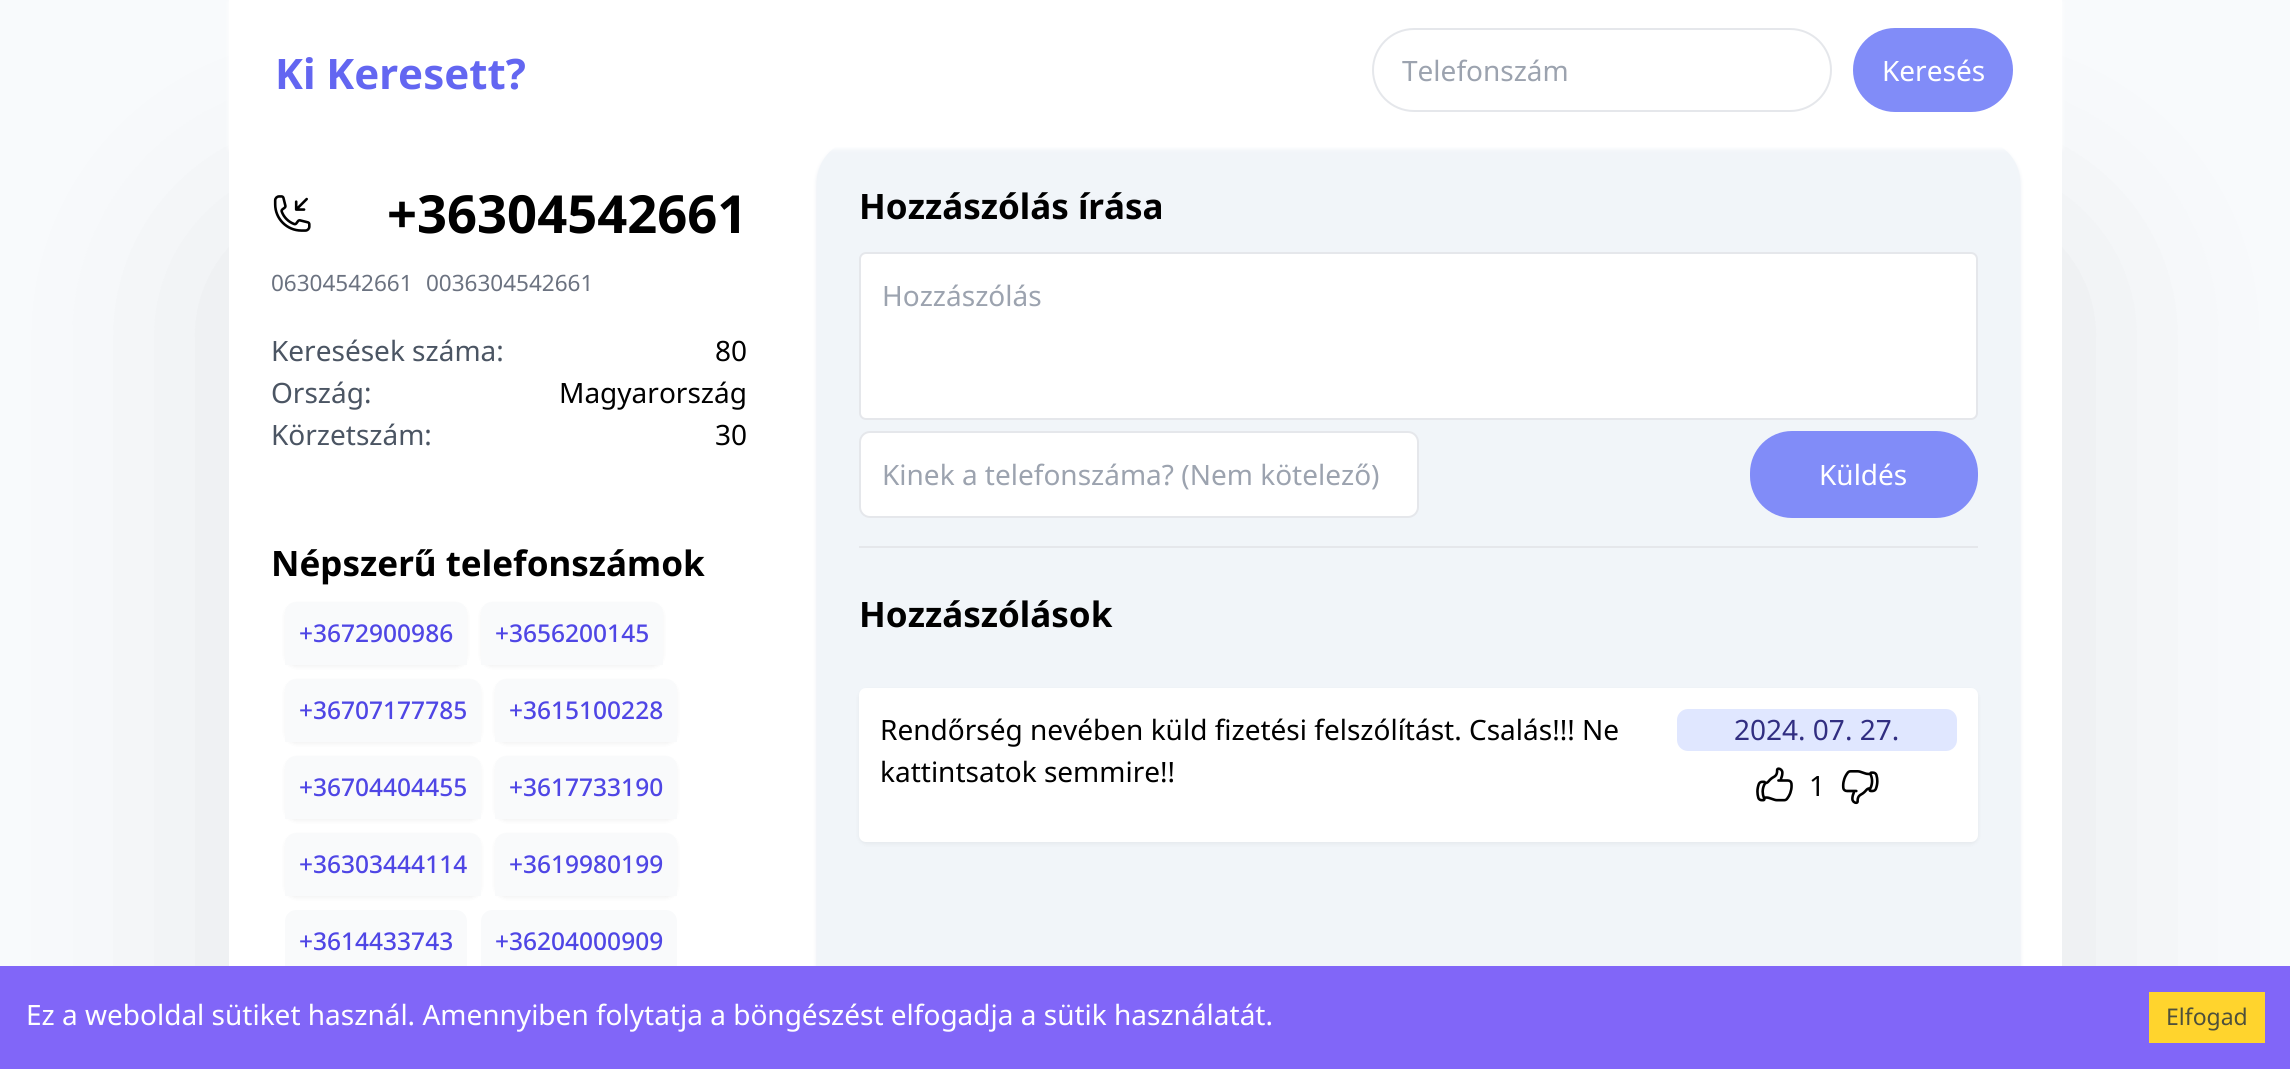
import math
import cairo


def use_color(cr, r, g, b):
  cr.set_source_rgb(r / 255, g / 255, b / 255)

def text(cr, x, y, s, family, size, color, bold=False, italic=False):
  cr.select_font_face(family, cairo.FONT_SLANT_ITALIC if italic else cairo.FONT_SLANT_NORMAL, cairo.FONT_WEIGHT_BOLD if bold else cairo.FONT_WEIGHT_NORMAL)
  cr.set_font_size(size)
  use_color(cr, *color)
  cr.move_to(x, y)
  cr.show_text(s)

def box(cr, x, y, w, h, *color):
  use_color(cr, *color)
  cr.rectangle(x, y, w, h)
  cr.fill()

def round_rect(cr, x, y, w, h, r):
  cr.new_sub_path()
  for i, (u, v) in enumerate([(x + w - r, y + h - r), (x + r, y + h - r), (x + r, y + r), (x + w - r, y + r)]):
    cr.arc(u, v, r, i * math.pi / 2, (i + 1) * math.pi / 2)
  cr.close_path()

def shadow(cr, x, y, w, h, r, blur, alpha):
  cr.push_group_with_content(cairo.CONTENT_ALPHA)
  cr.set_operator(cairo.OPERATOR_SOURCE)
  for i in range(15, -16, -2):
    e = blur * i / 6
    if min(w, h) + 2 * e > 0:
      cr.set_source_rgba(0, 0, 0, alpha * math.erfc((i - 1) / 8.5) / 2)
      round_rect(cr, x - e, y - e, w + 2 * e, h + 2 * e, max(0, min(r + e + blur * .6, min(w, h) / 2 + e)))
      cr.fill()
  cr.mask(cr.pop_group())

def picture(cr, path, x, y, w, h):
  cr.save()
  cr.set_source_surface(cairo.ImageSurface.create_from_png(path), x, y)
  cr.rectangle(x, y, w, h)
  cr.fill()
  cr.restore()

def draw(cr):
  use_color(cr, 248, 250, 252)
  cr.paint()
  use_color(cr, 0, 0, 0)
  shadow(cr, 256, 263, 1779, 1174, 0, 122.5, 0.1)
  box(cr, 229, 147, 1833, 819, 255, 255, 255)
  use_color(cr, 226, 232, 240)
  shadow(cr, 817, 142, 1203, 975, 42, 2, 1)
  use_color(cr, 241, 245, 249)
  round_rect(cr, 817, 140, 1203, 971, 42)
  cr.fill()
  use_color(cr, 255, 255, 255)
  shadow(cr, 229, 2, 1833, 147, 0, 2, 1)
  box(cr, 229, 0, 1833, 147, 255, 255, 255)
  round_rect(cr, 1373, 29, 458, 82, 41)
  use_color(cr, 229, 231, 235)
  cr.stroke()
  use_color(cr, 129, 140, 248)
  round_rect(cr, 1853, 28, 160, 84, 42)
  cr.fill()
  picture(cr, "img_01.png", 273, 195, 38, 37)
  use_color(cr, 0, 0, 0)
  shadow(cr, 285, 604, 182, 63, 11, 2, 0.05)
  use_color(cr, 249, 250, 251)
  cr.new_path()
  cr.move_to(296, 602)
  cr.line_to(456, 602)
  cr.curve_to(462, 602, 467, 607, 467, 613)
  cr.line_to(467, 665)
  cr.line_to(285, 665)
  cr.line_to(285, 613)
  cr.curve_to(285, 607, 290, 602, 296, 602)
  cr.close_path()
  cr.fill()
  use_color(cr, 0, 0, 0)
  shadow(cr, 481, 604, 182, 63, 11, 2, 0.05)
  use_color(cr, 249, 250, 251)
  cr.new_path()
  cr.move_to(492, 602)
  cr.line_to(652, 602)
  cr.curve_to(658, 602, 663, 607, 663, 613)
  cr.line_to(663, 665)
  cr.line_to(481, 665)
  cr.line_to(481, 613)
  cr.curve_to(481, 607, 486, 602, 492, 602)
  cr.close_path()
  cr.fill()
  use_color(cr, 0, 0, 0)
  shadow(cr, 285, 681, 196, 63, 11, 2, 0.05)
  use_color(cr, 249, 250, 251)
  cr.new_path()
  cr.move_to(296, 679)
  cr.line_to(470, 679)
  cr.curve_to(476, 679, 481, 684, 481, 690)
  cr.line_to(481, 742)
  cr.line_to(285, 742)
  cr.line_to(285, 690)
  cr.curve_to(285, 684, 290, 679, 296, 679)
  cr.close_path()
  cr.fill()
  use_color(cr, 0, 0, 0)
  shadow(cr, 495, 681, 182, 63, 11, 2, 0.05)
  use_color(cr, 249, 250, 251)
  cr.new_path()
  cr.move_to(506, 679)
  cr.line_to(666, 679)
  cr.curve_to(672, 679, 677, 684, 677, 690)
  cr.line_to(677, 742)
  cr.line_to(495, 742)
  cr.line_to(495, 690)
  cr.curve_to(495, 684, 500, 679, 506, 679)
  cr.close_path()
  cr.fill()
  use_color(cr, 0, 0, 0)
  shadow(cr, 285, 758, 196, 63, 11, 2, 0.05)
  use_color(cr, 249, 250, 251)
  cr.new_path()
  cr.move_to(296, 756)
  cr.line_to(470, 756)
  cr.curve_to(476, 756, 481, 761, 481, 767)
  cr.line_to(481, 819)
  cr.line_to(285, 819)
  cr.line_to(285, 767)
  cr.curve_to(285, 761, 290, 756, 296, 756)
  cr.close_path()
  cr.fill()
  use_color(cr, 0, 0, 0)
  shadow(cr, 495, 758, 182, 63, 11, 2, 0.05)
  use_color(cr, 249, 250, 251)
  cr.new_path()
  cr.move_to(506, 756)
  cr.line_to(666, 756)
  cr.curve_to(672, 756, 677, 761, 677, 767)
  cr.line_to(677, 819)
  cr.line_to(495, 819)
  cr.line_to(495, 767)
  cr.curve_to(495, 761, 500, 756, 506, 756)
  cr.close_path()
  cr.fill()
  use_color(cr, 0, 0, 0)
  shadow(cr, 285, 835, 196, 63, 11, 2, 0.05)
  use_color(cr, 249, 250, 251)
  cr.new_path()
  cr.move_to(296, 833)
  cr.line_to(470, 833)
  cr.curve_to(476, 833, 481, 838, 481, 844)
  cr.line_to(481, 896)
  cr.line_to(285, 896)
  cr.line_to(285, 844)
  cr.curve_to(285, 838, 290, 833, 296, 833)
  cr.close_path()
  cr.fill()
  use_color(cr, 0, 0, 0)
  shadow(cr, 495, 835, 182, 63, 11, 2, 0.05)
  use_color(cr, 249, 250, 251)
  cr.new_path()
  cr.move_to(506, 833)
  cr.line_to(666, 833)
  cr.curve_to(672, 833, 677, 838, 677, 844)
  cr.line_to(677, 896)
  cr.line_to(495, 896)
  cr.line_to(495, 844)
  cr.curve_to(495, 838, 500, 833, 506, 833)
  cr.close_path()
  cr.fill()
  cr.new_path()
  cr.move_to(296, 910)
  cr.line_to(456, 910)
  cr.curve_to(462, 910, 467, 915, 467, 921)
  cr.line_to(467, 973)
  cr.line_to(285, 973)
  cr.line_to(285, 921)
  cr.curve_to(285, 915, 290, 910, 296, 910)
  cr.close_path()
  cr.fill()
  cr.new_path()
  cr.move_to(492, 910)
  cr.line_to(666, 910)
  cr.curve_to(672, 910, 677, 915, 677, 921)
  cr.line_to(677, 973)
  cr.line_to(481, 973)
  cr.line_to(481, 921)
  cr.curve_to(481, 915, 486, 910, 492, 910)
  cr.close_path()
  cr.fill()
  box(cr, 859, 546, 1119, 2, 229, 231, 235)
  use_color(cr, 255, 255, 255)
  round_rect(cr, 860, 253, 1117, 166, 6)
  cr.fill_preserve()
  use_color(cr, 229, 231, 235)
  cr.stroke()
  use_color(cr, 255, 255, 255)
  round_rect(cr, 860, 432, 558, 85, 10)
  cr.fill_preserve()
  use_color(cr, 229, 231, 235)
  cr.stroke()
  use_color(cr, 129, 140, 248)
  round_rect(cr, 1750, 431, 228, 87, 42)
  cr.fill()
  use_color(cr, 0, 0, 0)
  shadow(cr, 859, 690, 1119, 154, 7, 2, 0.05)
  use_color(cr, 255, 255, 255)
  round_rect(cr, 859, 688, 1119, 154, 7)
  cr.fill()
  use_color(cr, 224, 231, 255)
  round_rect(cr, 1677, 709, 280, 42, 11)
  cr.fill()
  picture(cr, "img_02.png", 1756, 767, 37, 35)
  picture(cr, "img_03.png", 1841, 770, 38, 35)
  box(cr, 0, 966, 2290, 103, 129, 102, 248)
  box(cr, 2149, 992, 116, 51, 255, 212, 45)
  text(cr, 275, 89, "Ki Keresett?", "Noto Sans", 42, (99, 102, 241), bold=True)
  text(cr, 1402, 81, "Telefonszám", "Noto Sans", 28, (156, 163, 175))
  text(cr, 1882, 81, "Keresés", "Noto Sans", 28, (255, 255, 255))
  text(cr, 387, 233, "+36304542661", "Noto Sans", 52.5, (0, 0, 0), bold=True)
  text(cr, 271, 291, "06304542661", "Noto Sans", 22.5, (107, 114, 128))
  text(cr, 426, 291, "0036304542661", "Noto Sans", 22.5, (107, 114, 128))
  text(cr, 271, 361, "Keresések száma:", "Noto Sans", 28, (75, 85, 99))
  text(cr, 715, 361, "80", "Noto Sans", 28, (0, 0, 0))
  text(cr, 271, 403, "Ország:", "Noto Sans", 28, (75, 85, 99))
  text(cr, 559, 403, "Magyarország", "Noto Sans", 28, (0, 0, 0))
  text(cr, 271, 445, "Körzetszám:", "Noto Sans", 28, (75, 85, 99))
  text(cr, 715, 445, "30", "Noto Sans", 28, (0, 0, 0))
  text(cr, 271, 576, "Népszerű telefonszámok", "Noto Sans", 35, (0, 0, 0), bold=True)
  text(cr, 299, 642, "+3672900986", "Noto Sans Medium", 24.5, (79, 70, 229))
  text(cr, 495, 642, "+3656200145", "Noto Sans Medium", 24.5, (79, 70, 229))
  text(cr, 299, 719, "+36707177785", "Noto Sans Medium", 24.5, (79, 70, 229))
  text(cr, 509, 719, "+3615100228", "Noto Sans Medium", 24.5, (79, 70, 229))
  text(cr, 299, 796, "+36704404455", "Noto Sans Medium", 24.5, (79, 70, 229))
  text(cr, 509, 796, "+3617733190", "Noto Sans Medium", 24.5, (79, 70, 229))
  text(cr, 299, 873, "+36303444114", "Noto Sans Medium", 24.5, (79, 70, 229))
  text(cr, 509, 873, "+3619980199", "Noto Sans Medium", 24.5, (79, 70, 229))
  text(cr, 299, 950, "+3614433743", "Noto Sans Medium", 24.5, (79, 70, 229))
  text(cr, 495, 950, "+36204000909", "Noto Sans Medium", 24.5, (79, 70, 229))
  text(cr, 859, 219, "Hozzászólás írása", "Noto Sans", 35, (0, 0, 0), bold=True)
  text(cr, 882, 306, "Hozzászólás", "Noto Sans", 28, (156, 163, 175))
  text(cr, 882, 485, "Kinek a telefonszáma? (Nem kötelező)", "Noto Sans", 28, (156, 163, 175))
  text(cr, 1819, 485, "Küldés", "Noto Sans", 28, (255, 255, 255))
  text(cr, 859, 627, "Hozzászólások", "Noto Sans", 35, (0, 0, 0), bold=True)
  text(cr, 880, 740, "Rendőrség nevében küld fizetési felszólítást. Csalás!!! Ne", "Noto Sans", 28, (0, 0, 0))
  text(cr, 880, 782, "kattintsatok semmire!!", "Noto Sans", 28, (0, 0, 0))
  text(cr, 1734, 740, "2024. 07. 27.", "Noto Sans", 28, (49, 46, 129))
  text(cr, 1809, 796, "1", "Noto Sans", 28, (0, 0, 0))
  text(cr, 26, 1025, "Ez a weboldal sütiket használ. Amennyiben folytatja a böngészést elfogadja a sütik használatát.", "Noto Sans", 28, (255, 255, 255))
  text(cr, 2166, 1025, "Elfogad", "Noto Sans", 23, (78, 80, 59))


surface = cairo.ImageSurface(cairo.FORMAT_RGB24, 2290, 1069)
cr = cairo.Context(surface)
options = cairo.FontOptions()
options.set_hint_metrics(cairo.HINT_METRICS_OFF)
options.set_hint_style(cairo.HINT_STYLE_NONE)
cr.set_font_options(options)
cr.set_miter_limit(4)
draw(cr)
surface.write_to_png("out.png")
